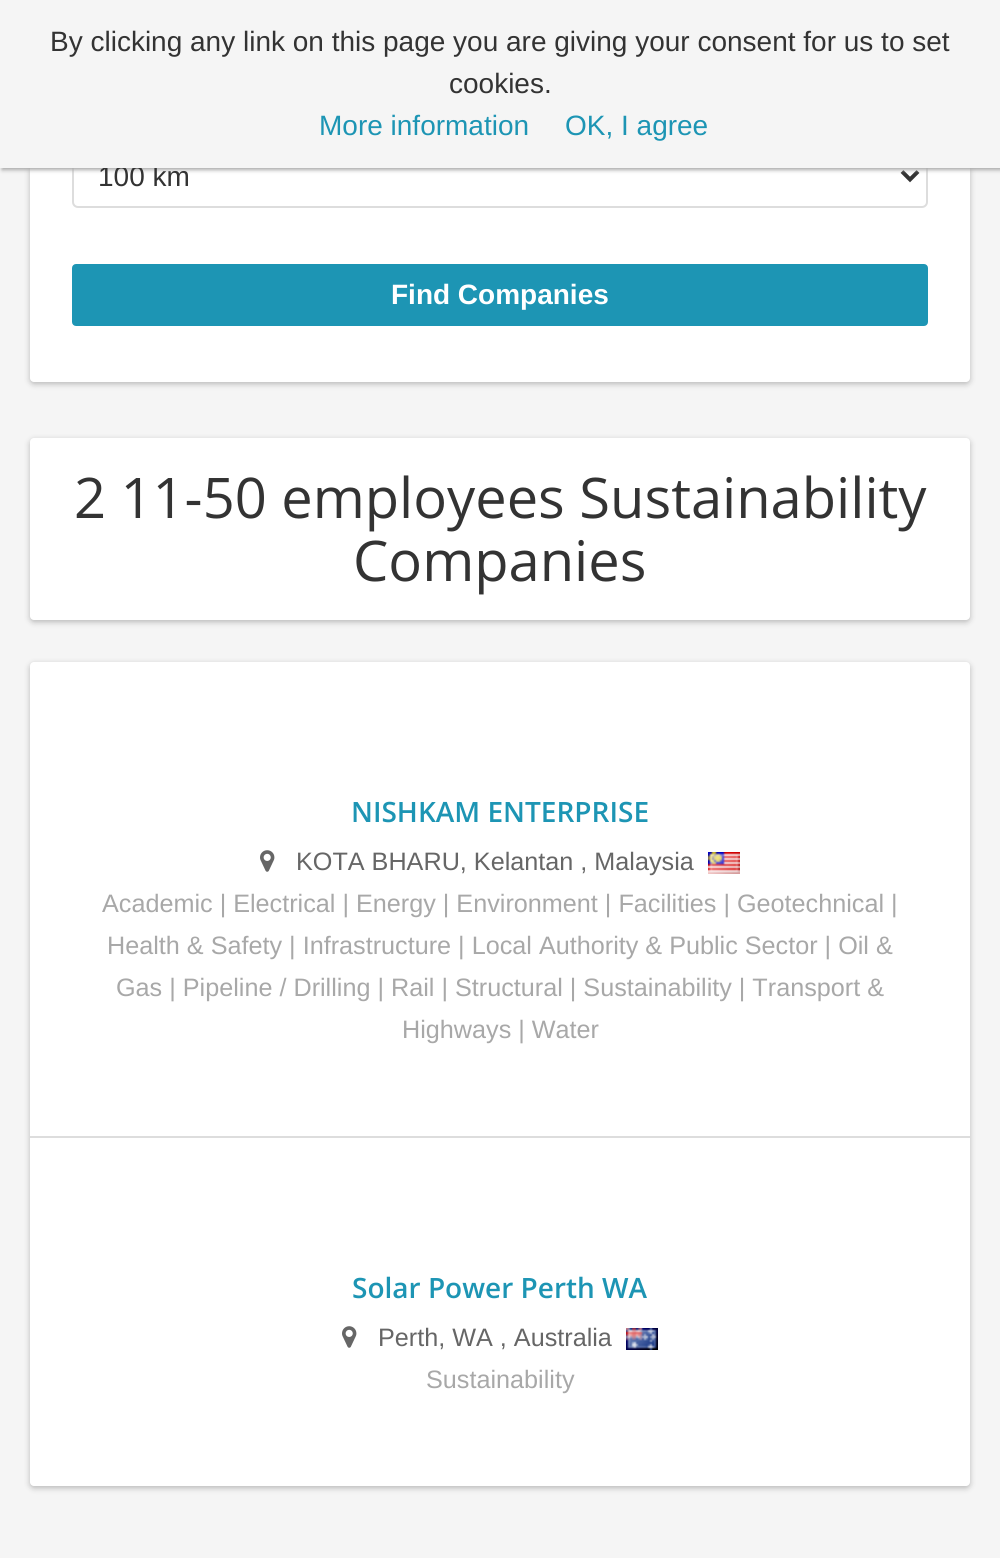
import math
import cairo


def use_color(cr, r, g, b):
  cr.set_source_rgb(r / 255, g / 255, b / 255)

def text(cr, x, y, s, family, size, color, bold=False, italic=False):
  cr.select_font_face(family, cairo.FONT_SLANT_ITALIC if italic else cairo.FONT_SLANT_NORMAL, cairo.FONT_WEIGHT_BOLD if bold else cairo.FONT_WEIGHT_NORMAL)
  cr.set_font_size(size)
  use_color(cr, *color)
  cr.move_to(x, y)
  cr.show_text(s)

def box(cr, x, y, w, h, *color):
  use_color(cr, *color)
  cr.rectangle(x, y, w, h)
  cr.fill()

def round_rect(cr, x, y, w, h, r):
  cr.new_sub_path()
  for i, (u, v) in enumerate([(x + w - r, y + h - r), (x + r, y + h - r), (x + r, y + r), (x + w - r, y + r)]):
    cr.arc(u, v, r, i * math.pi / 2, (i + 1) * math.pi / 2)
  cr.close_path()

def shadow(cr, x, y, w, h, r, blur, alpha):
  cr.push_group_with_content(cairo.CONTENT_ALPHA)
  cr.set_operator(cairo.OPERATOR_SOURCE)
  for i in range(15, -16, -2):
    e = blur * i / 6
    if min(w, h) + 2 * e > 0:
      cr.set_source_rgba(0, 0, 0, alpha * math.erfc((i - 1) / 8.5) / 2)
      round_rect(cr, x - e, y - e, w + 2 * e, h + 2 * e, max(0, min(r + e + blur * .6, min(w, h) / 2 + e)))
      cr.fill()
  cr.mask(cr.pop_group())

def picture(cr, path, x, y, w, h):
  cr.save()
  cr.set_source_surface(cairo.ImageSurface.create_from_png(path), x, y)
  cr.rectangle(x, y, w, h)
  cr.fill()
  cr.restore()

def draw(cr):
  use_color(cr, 245, 245, 245)
  cr.paint()
  use_color(cr, 0, 0, 0)
  shadow(cr, 30, -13, 940, 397, 4, 3, 0.25)
  use_color(cr, 255, 255, 255)
  round_rect(cr, 30, -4, 940, 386, 4)
  cr.fill()
  round_rect(cr, 73, 145, 854, 62, 5)
  use_color(cr, 221, 221, 221)
  cr.stroke()
  cr.new_path()
  cr.move_to(902, 171.5)
  cr.line_to(910, 179.5)
  cr.line_to(918, 171.5)
  use_color(cr, 51, 51, 51)
  cr.set_line_width(4)
  cr.stroke()
  use_color(cr, 168, 168, 168)
  shadow(cr, 2, 2, 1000, 168, 0, 2, 1)
  use_color(cr, 29, 149, 180)
  round_rect(cr, 73, 265, 854, 60, 3)
  cr.fill_preserve()
  cr.set_line_width(2)
  cr.stroke()
  use_color(cr, 0, 0, 0)
  shadow(cr, 30, 440, 940, 182, 4, 3, 0.25)
  use_color(cr, 255, 255, 255)
  round_rect(cr, 30, 438, 940, 182, 4)
  cr.fill()
  use_color(cr, 0, 0, 0)
  shadow(cr, 30, 664, 940, 824, 4, 3, 0.25)
  use_color(cr, 255, 255, 255)
  round_rect(cr, 30, 662, 940, 824, 4)
  cr.fill()
  picture(cr, "img_01.png", 260, 850, 15, 22)
  picture(cr, "img_02.png", 708, 852, 32, 22)
  box(cr, 30, 1136, 940, 2, 221, 221, 221)
  picture(cr, "img_01.png", 342, 1326, 15, 22)
  picture(cr, "img_03.png", 626, 1328, 32, 22)
  text(cr, 98, 186, "100 km", "Liberation Sans", 28, (51, 51, 51))
  box(cr, 0, 0, 1000, 168, 245, 245, 245)
  text(cr, 565, 135, "OK, I agree", "Liberation Sans", 28, (29, 149, 180))
  text(cr, 319, 135, "More information", "Liberation Sans", 28, (29, 149, 180))
  text(cr, 449, 93, "cookies.", "Liberation Sans", 28, (51, 51, 51))
  text(cr, 50, 51, "By clicking any link on this page you are giving your consent for us to set", "Liberation Sans", 28, (51, 51, 51))
  text(cr, 391, 304, "Find Companies", "Liberation Sans", 28, (255, 255, 255), bold=True)
  text(cr, 74, 518, "2 11-50 employees Sustainability", "Open Sans", 56, (51, 51, 51))
  text(cr, 353, 581, "Companies", "Open Sans", 56, (51, 51, 51))
  text(cr, 351, 822, "NISHKAM ENTERPRISE", "Open Sans SemiBold", 28, (29, 149, 180))
  text(cr, 296, 870, "KOTA BHARU, Kelantan , Malaysia", "Liberation Sans", 25.2, (102, 102, 102))
  text(cr, 102, 912, "Academic | Electrical | Energy | Environment | Facilities | Geotechnical |", "Liberation Sans", 25.2, (168, 168, 168))
  text(cr, 107, 954, "Health & Safety | Infrastructure | Local Authority & Public Sector | Oil &", "Liberation Sans", 25.2, (168, 168, 168))
  text(cr, 116, 996, "Gas | Pipeline / Drilling | Rail | Structural | Sustainability | Transport &", "Liberation Sans", 25.2, (168, 168, 168))
  text(cr, 402, 1038, "Highways | Water", "Liberation Sans", 25.2, (168, 168, 168))
  text(cr, 352, 1298, "Solar Power Perth WA", "Open Sans SemiBold", 28, (29, 149, 180))
  text(cr, 378, 1346, "Perth, WA , Australia", "Liberation Sans", 25.2, (102, 102, 102))
  text(cr, 426, 1388, "Sustainability", "Liberation Sans", 25.2, (168, 168, 168))


surface = cairo.ImageSurface(cairo.FORMAT_RGB24, 1000, 1558)
cr = cairo.Context(surface)
options = cairo.FontOptions()
options.set_hint_metrics(cairo.HINT_METRICS_OFF)
options.set_hint_style(cairo.HINT_STYLE_NONE)
cr.set_font_options(options)
cr.set_miter_limit(4)
draw(cr)
surface.write_to_png("out.png")
